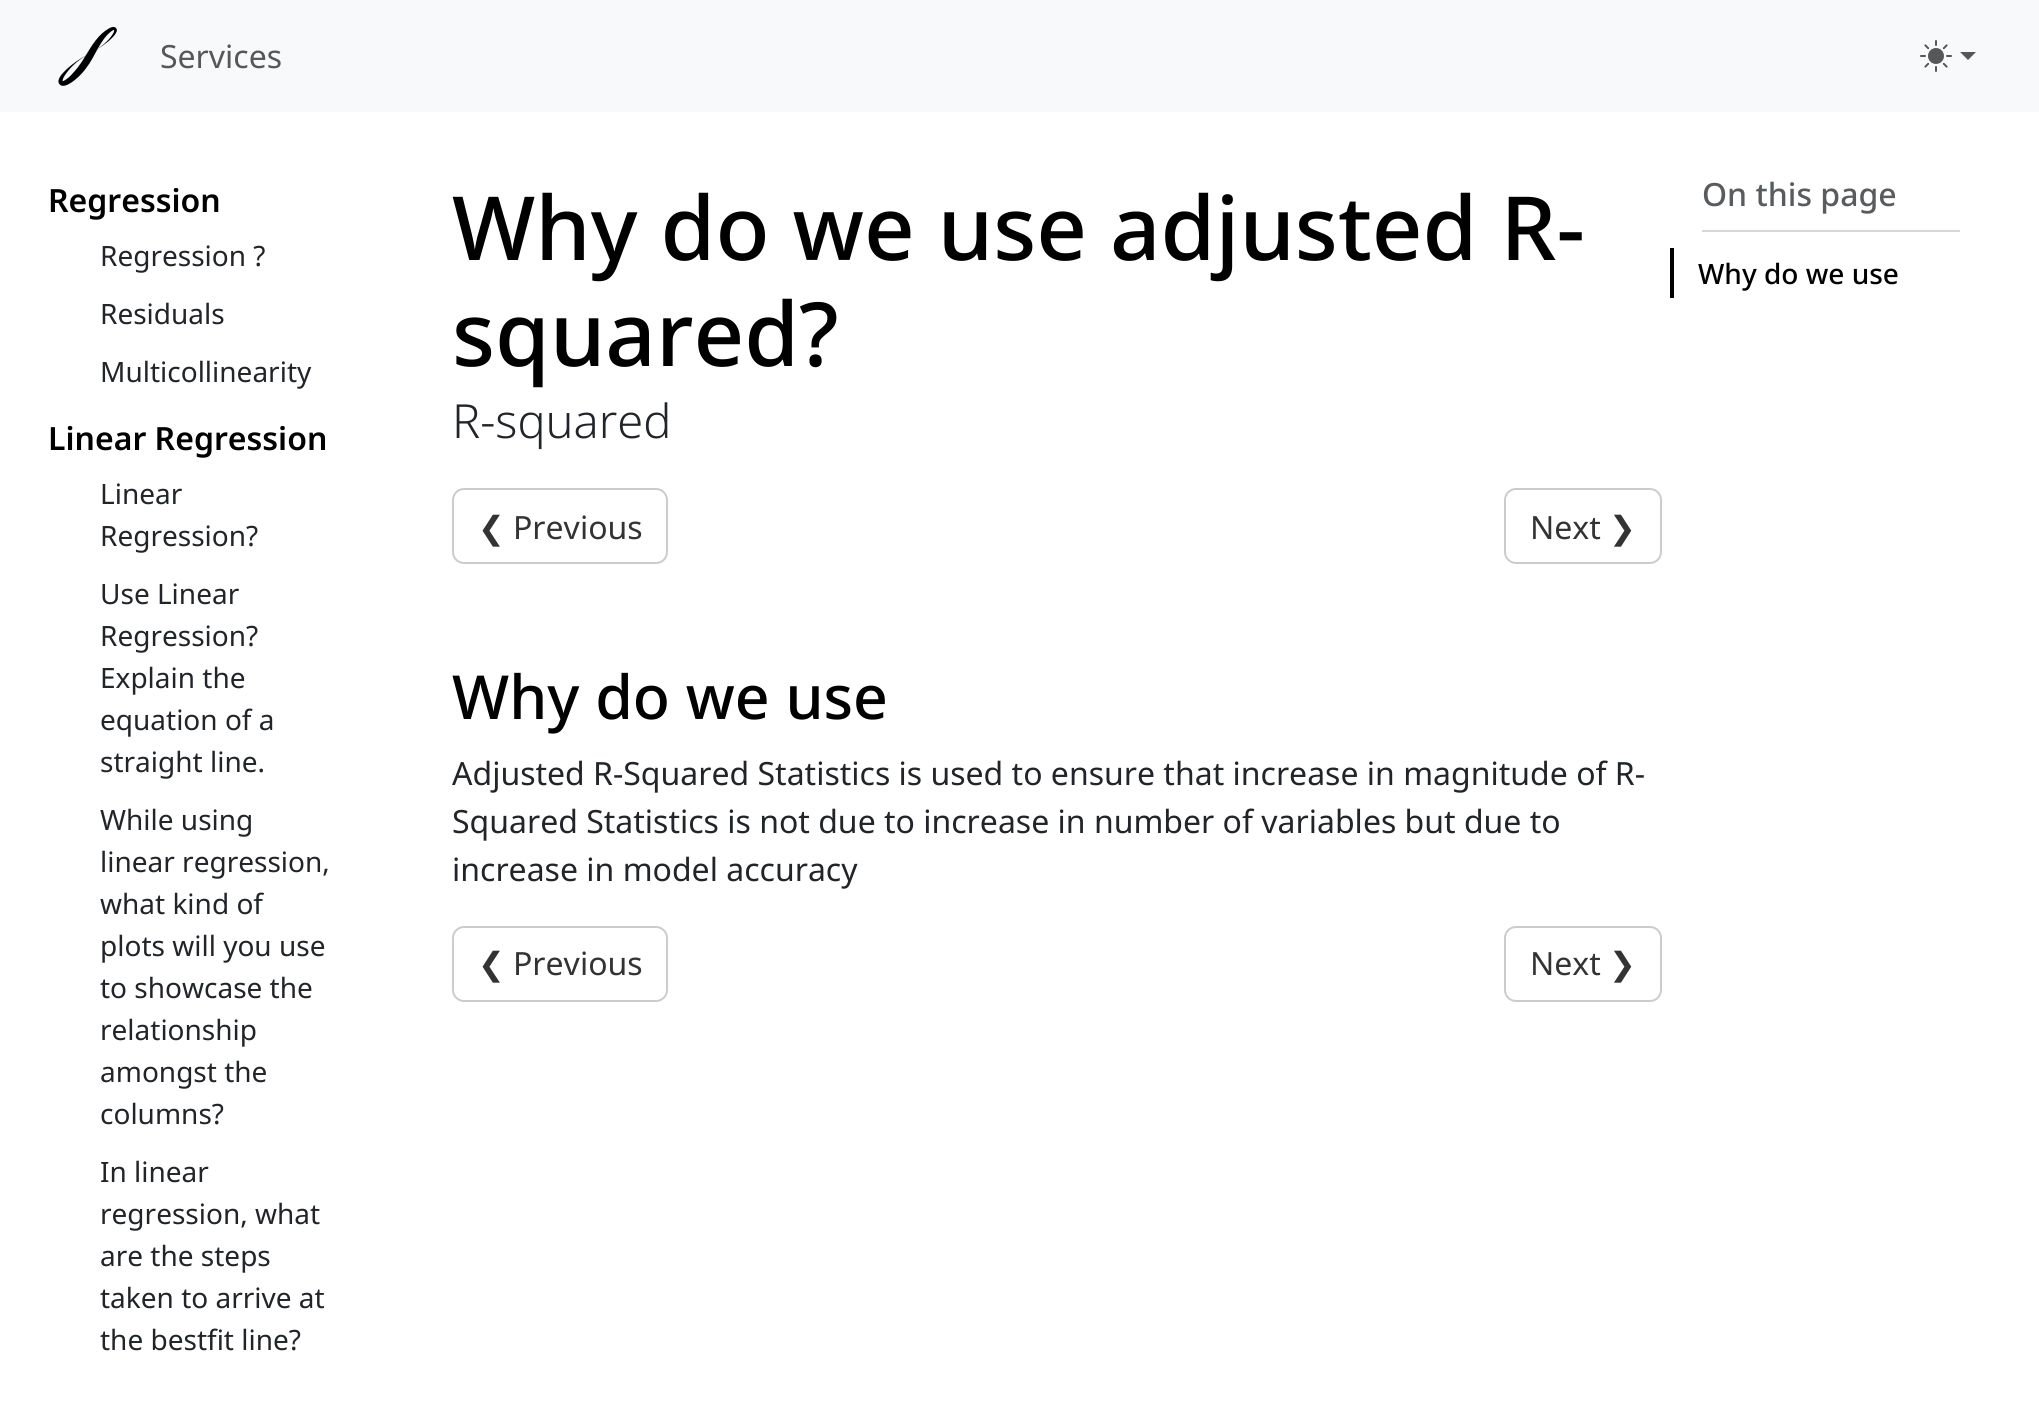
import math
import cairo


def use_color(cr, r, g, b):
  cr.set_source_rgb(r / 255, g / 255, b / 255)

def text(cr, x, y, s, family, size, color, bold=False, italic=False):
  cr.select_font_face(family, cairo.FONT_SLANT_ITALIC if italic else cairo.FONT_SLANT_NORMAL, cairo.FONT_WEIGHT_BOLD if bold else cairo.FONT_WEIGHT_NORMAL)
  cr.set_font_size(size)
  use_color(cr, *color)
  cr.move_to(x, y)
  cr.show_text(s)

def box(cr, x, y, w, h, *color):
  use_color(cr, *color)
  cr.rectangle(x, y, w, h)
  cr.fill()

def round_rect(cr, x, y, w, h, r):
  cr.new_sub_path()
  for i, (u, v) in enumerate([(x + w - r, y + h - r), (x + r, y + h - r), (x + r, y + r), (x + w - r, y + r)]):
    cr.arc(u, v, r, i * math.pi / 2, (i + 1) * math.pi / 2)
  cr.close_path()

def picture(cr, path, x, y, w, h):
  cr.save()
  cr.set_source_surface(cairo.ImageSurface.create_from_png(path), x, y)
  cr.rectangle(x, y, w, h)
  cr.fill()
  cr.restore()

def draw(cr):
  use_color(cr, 255, 255, 255)
  cr.paint()
  box(cr, 0, 0, 2039, 112, 248, 249, 250)
  picture(cr, "img_01.png", 58, 26, 59, 60)
  picture(cr, "img_02.png", 1920, 40, 32, 32)
  use_color(cr, 87, 87, 88)
  cr.new_path()
  cr.move_to(1960, 52)
  cr.line_to(1976, 52)
  cr.line_to(1968, 60)
  cr.close_path()
  cr.fill()
  box(cr, 1702, 230, 258, 2, 214, 215, 215)
  box(cr, 1670, 248, 4, 50, 0, 0, 0)
  round_rect(cr, 453, 489, 214, 74, 11)
  use_color(cr, 204, 204, 204)
  cr.stroke()
  round_rect(cr, 1505, 489, 156, 74, 11)
  cr.stroke()
  round_rect(cr, 453, 927, 214, 74, 11)
  cr.stroke()
  round_rect(cr, 1505, 927, 156, 74, 11)
  cr.stroke()
  text(cr, 160, 68, "Services", "Noto Sans", 32, (87, 87, 88))
  text(cr, 48, 212, "Regression", "Noto Sans SemiBold", 32, (0, 0, 0))
  text(cr, 100, 266, "Regression ?", "Noto Sans", 28, (33, 37, 41))
  text(cr, 100, 324, "Residuals", "Noto Sans", 28, (33, 37, 41))
  text(cr, 100, 382, "Multicollinearity", "Noto Sans", 28, (33, 37, 41))
  text(cr, 48, 450, "Linear Regression", "Noto Sans SemiBold", 32, (0, 0, 0))
  text(cr, 100, 504, "Linear", "Noto Sans", 28, (33, 37, 41))
  text(cr, 100, 546, "Regression?", "Noto Sans", 28, (33, 37, 41))
  text(cr, 100, 604, "Use Linear", "Noto Sans", 28, (33, 37, 41))
  text(cr, 100, 646, "Regression?", "Noto Sans", 28, (33, 37, 41))
  text(cr, 100, 688, "Explain the", "Noto Sans", 28, (33, 37, 41))
  text(cr, 100, 730, "equation of a", "Noto Sans", 28, (33, 37, 41))
  text(cr, 100, 772, "straight line.", "Noto Sans", 28, (33, 37, 41))
  text(cr, 100, 830, "While using", "Noto Sans", 28, (33, 37, 41))
  text(cr, 100, 872, "linear regression,", "Noto Sans", 28, (33, 37, 41))
  text(cr, 100, 914, "what kind of", "Noto Sans", 28, (33, 37, 41))
  text(cr, 100, 956, "plots will you use", "Noto Sans", 28, (33, 37, 41))
  text(cr, 100, 998, "to showcase the", "Noto Sans", 28, (33, 37, 41))
  text(cr, 100, 1040, "relationship", "Noto Sans", 28, (33, 37, 41))
  text(cr, 100, 1082, "amongst the", "Noto Sans", 28, (33, 37, 41))
  text(cr, 100, 1124, "columns?", "Noto Sans", 28, (33, 37, 41))
  text(cr, 100, 1182, "In linear", "Noto Sans", 28, (33, 37, 41))
  text(cr, 100, 1224, "regression, what", "Noto Sans", 28, (33, 37, 41))
  text(cr, 100, 1266, "are the steps", "Noto Sans", 28, (33, 37, 41))
  text(cr, 100, 1308, "taken to arrive at", "Noto Sans", 28, (33, 37, 41))
  text(cr, 100, 1350, "the bestfit line?", "Noto Sans", 28, (33, 37, 41))
  text(cr, 452, 260, "Why do we use adjusted R-", "Noto Sans Medium", 88.5, (0, 0, 0))
  text(cr, 452, 366, "squared?", "Noto Sans Medium", 88.5, (0, 0, 0))
  text(cr, 452, 438, "R-squared", "Noto Sans Light", 47, (33, 37, 41))
  text(cr, 1702, 206, "On this page", "Noto Sans Medium", 32, (89, 92, 95))
  text(cr, 1698, 284, "Why do we use", "Noto Sans Medium", 28, (0, 0, 0))
  text(cr, 478, 539, "❮", "DejaVu Sans", 32, (51, 51, 51))
  text(cr, 513, 539, "Previous", "Noto Sans", 32, (51, 51, 51))
  text(cr, 1530, 539, "Next", "Noto Sans", 32, (51, 51, 51))
  text(cr, 1609, 539, "❯", "DejaVu Sans", 32, (51, 51, 51))
  text(cr, 452, 719, "Why do we use", "Noto Sans Medium", 60.75, (0, 0, 0))
  text(cr, 452, 785, "Adjusted R-Squared Statistics is used to ensure that increase in magnitude of R-", "Noto Sans", 32, (33, 37, 41))
  text(cr, 452, 833, "Squared Statistics is not due to increase in number of variables but due to", "Noto Sans", 32, (33, 37, 41))
  text(cr, 452, 881, "increase in model accuracy", "Noto Sans", 32, (33, 37, 41))
  text(cr, 478, 975, "❮", "DejaVu Sans", 32, (51, 51, 51))
  text(cr, 513, 975, "Previous", "Noto Sans", 32, (51, 51, 51))
  text(cr, 1530, 975, "Next", "Noto Sans", 32, (51, 51, 51))
  text(cr, 1609, 975, "❯", "DejaVu Sans", 32, (51, 51, 51))


surface = cairo.ImageSurface(cairo.FORMAT_RGB24, 2039, 1410)
cr = cairo.Context(surface)
options = cairo.FontOptions()
options.set_hint_metrics(cairo.HINT_METRICS_OFF)
options.set_hint_style(cairo.HINT_STYLE_NONE)
cr.set_font_options(options)
cr.set_miter_limit(4)
draw(cr)
surface.write_to_png("out.png")
